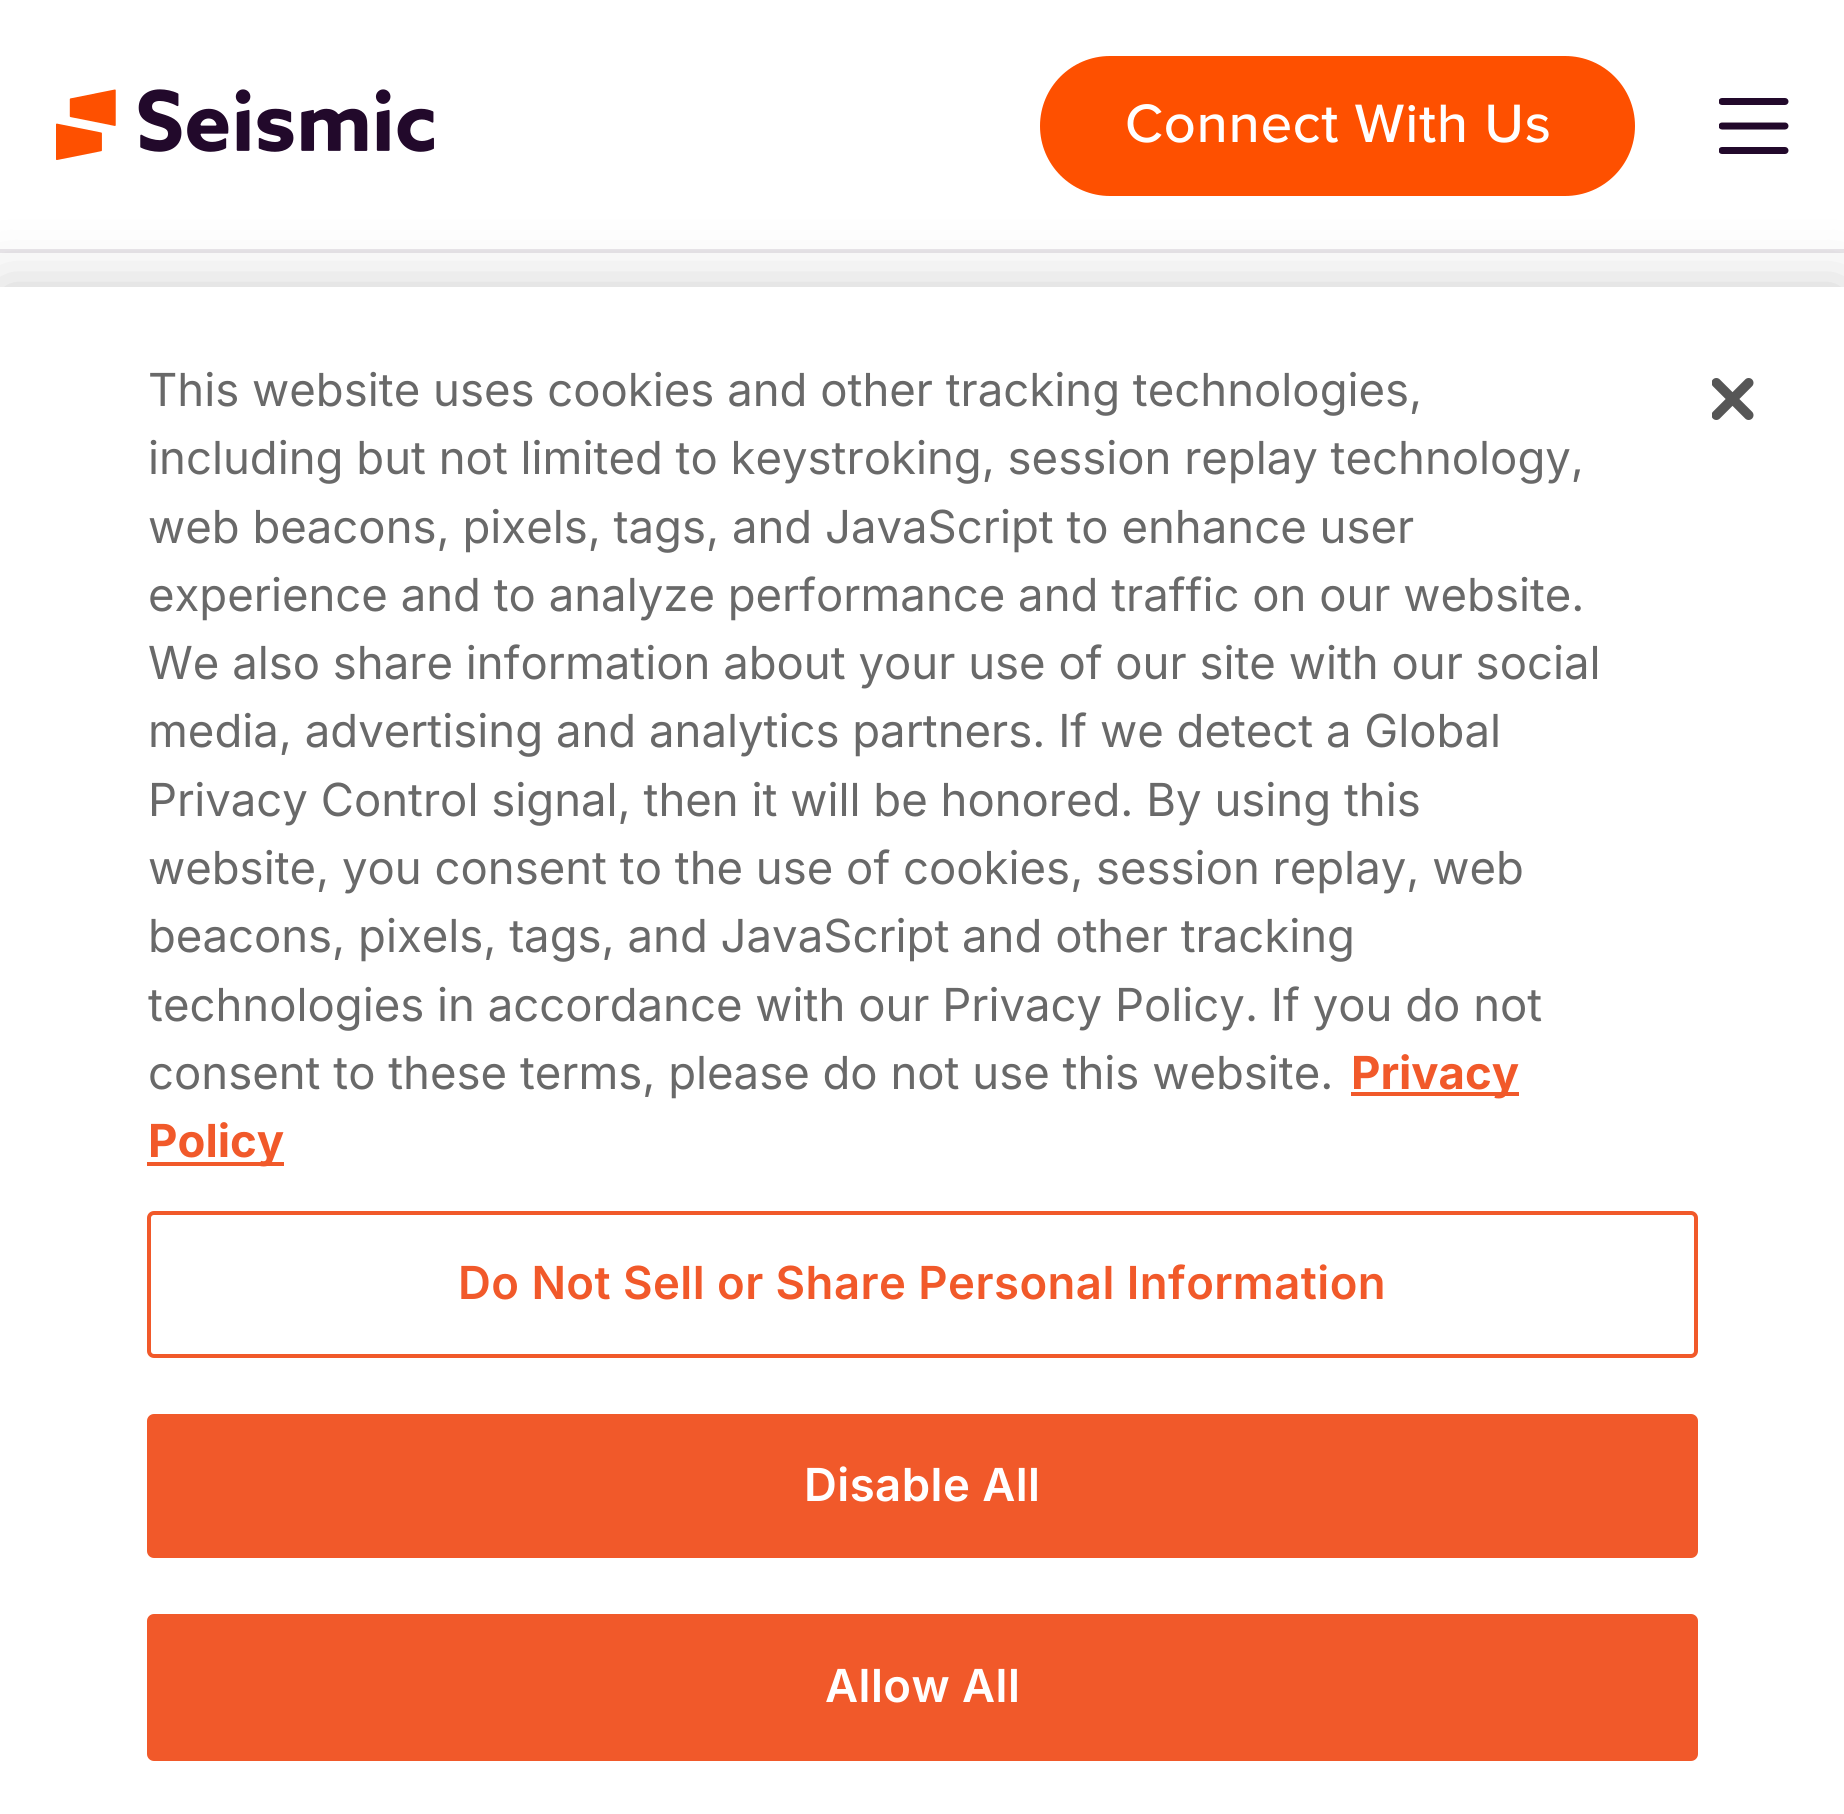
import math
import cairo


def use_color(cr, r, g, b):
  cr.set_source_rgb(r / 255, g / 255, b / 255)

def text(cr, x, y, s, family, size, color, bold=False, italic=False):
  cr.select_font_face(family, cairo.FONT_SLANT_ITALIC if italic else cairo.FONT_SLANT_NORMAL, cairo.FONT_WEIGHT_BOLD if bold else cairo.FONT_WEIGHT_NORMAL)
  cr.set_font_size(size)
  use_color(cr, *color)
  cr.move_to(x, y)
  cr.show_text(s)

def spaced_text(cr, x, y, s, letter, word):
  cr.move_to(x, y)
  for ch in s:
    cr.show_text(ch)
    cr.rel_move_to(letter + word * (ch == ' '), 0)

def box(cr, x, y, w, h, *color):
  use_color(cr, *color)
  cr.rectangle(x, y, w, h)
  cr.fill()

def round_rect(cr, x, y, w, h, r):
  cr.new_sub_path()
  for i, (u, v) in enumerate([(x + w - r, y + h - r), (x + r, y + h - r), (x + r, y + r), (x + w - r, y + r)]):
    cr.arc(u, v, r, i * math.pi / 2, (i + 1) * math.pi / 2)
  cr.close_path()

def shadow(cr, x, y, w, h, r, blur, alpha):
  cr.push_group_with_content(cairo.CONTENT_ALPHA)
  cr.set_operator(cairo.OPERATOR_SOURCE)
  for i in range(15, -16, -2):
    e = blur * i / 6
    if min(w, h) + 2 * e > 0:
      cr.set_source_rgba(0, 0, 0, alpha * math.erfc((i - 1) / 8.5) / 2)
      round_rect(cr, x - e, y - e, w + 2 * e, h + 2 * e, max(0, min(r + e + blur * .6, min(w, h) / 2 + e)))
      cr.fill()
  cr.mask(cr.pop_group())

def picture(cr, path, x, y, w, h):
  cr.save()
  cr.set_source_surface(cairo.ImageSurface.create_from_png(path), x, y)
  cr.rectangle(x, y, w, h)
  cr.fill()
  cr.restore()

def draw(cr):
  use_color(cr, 255, 255, 255)
  cr.paint()
  box(cr, 0, 249, 1844, 4, 233, 230, 234)
  picture(cr, "img_01.png", 56, 89, 378, 71)
  use_color(cr, 254, 80, 0)
  round_rect(cr, 1040, 56, 595, 140, 70)
  cr.fill()
  picture(cr, "img_02.png", 1719, 98, 70, 56)
  use_color(cr, 0, 0, 0)
  shadow(cr, 0, 287, 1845, 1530, 0, 31.5, 0.2)
  box(cr, 0, 287, 1844, 1527, 255, 255, 255)
  box(cr, 1351, 1092, 168, 4, 241, 89, 42)
  box(cr, 147, 1162, 137, 4, 241, 89, 42)
  round_rect(cr, 149, 1213, 1547, 143, 5)
  cr.set_line_width(4)
  cr.stroke()
  round_rect(cr, 149, 1416, 1547, 140, 5)
  cr.fill_preserve()
  cr.stroke()
  round_rect(cr, 149, 1616, 1547, 143, 5)
  cr.fill_preserve()
  cr.stroke()
  picture(cr, "img_03.png", 1712, 378, 42, 42)
  cr.select_font_face("Proxima Nova Medium")
  cr.set_font_size(56)
  use_color(cr, 255, 255, 255)
  spaced_text(cr, 1125, 142, "Connect With Us", 0.75, 0)
  text(cr, 148, 406, "This website uses cookies and other tracking technologies,", "Inter", 45.5, (105, 105, 105))
  text(cr, 148, 474, "including but not limited to keystroking, session replay technology,", "Inter", 45.5, (105, 105, 105))
  text(cr, 148, 543, "web beacons, pixels, tags, and JavaScript to enhance user", "Inter", 45.5, (105, 105, 105))
  text(cr, 148, 611, "experience and to analyze performance and traffic on our website.", "Inter", 45.5, (105, 105, 105))
  text(cr, 148, 679, "We also share information about your use of our site with our social", "Inter", 45.5, (105, 105, 105))
  text(cr, 148, 747, "media, advertising and analytics partners. If we detect a Global", "Inter", 45.5, (105, 105, 105))
  text(cr, 148, 816, "Privacy Control signal, then it will be honored. By using this", "Inter", 45.5, (105, 105, 105))
  text(cr, 148, 884, "website, you consent to the use of cookies, session replay, web", "Inter", 45.5, (105, 105, 105))
  text(cr, 148, 952, "beacons, pixels, tags, and JavaScript and other tracking", "Inter", 45.5, (105, 105, 105))
  text(cr, 148, 1021, "technologies in accordance with our Privacy Policy. If you do not", "Inter", 45.5, (105, 105, 105))
  text(cr, 148, 1089, "consent to these terms, please do not use this website.", "Inter", 45.5, (105, 105, 105))
  text(cr, 1351, 1089, "Privacy", "Inter", 45.5, (241, 89, 42), bold=True)
  text(cr, 148, 1157, "Policy", "Inter", 45.5, (241, 89, 42), bold=True)
  cr.select_font_face("Inter SemiBold")
  spaced_text(cr, 458, 1299, "Do Not Sell or Share Personal Information", 0.45, 0)
  use_color(cr, 255, 255, 255)
  spaced_text(cr, 804, 1501, "Disable All", 0.45, 0)
  spaced_text(cr, 825, 1702, "Allow All", 0.45, 0)


surface = cairo.ImageSurface(cairo.FORMAT_RGB24, 1844, 1814)
cr = cairo.Context(surface)
options = cairo.FontOptions()
options.set_hint_metrics(cairo.HINT_METRICS_OFF)
options.set_hint_style(cairo.HINT_STYLE_NONE)
cr.set_font_options(options)
cr.set_miter_limit(4)
draw(cr)
surface.write_to_png("out.png")
